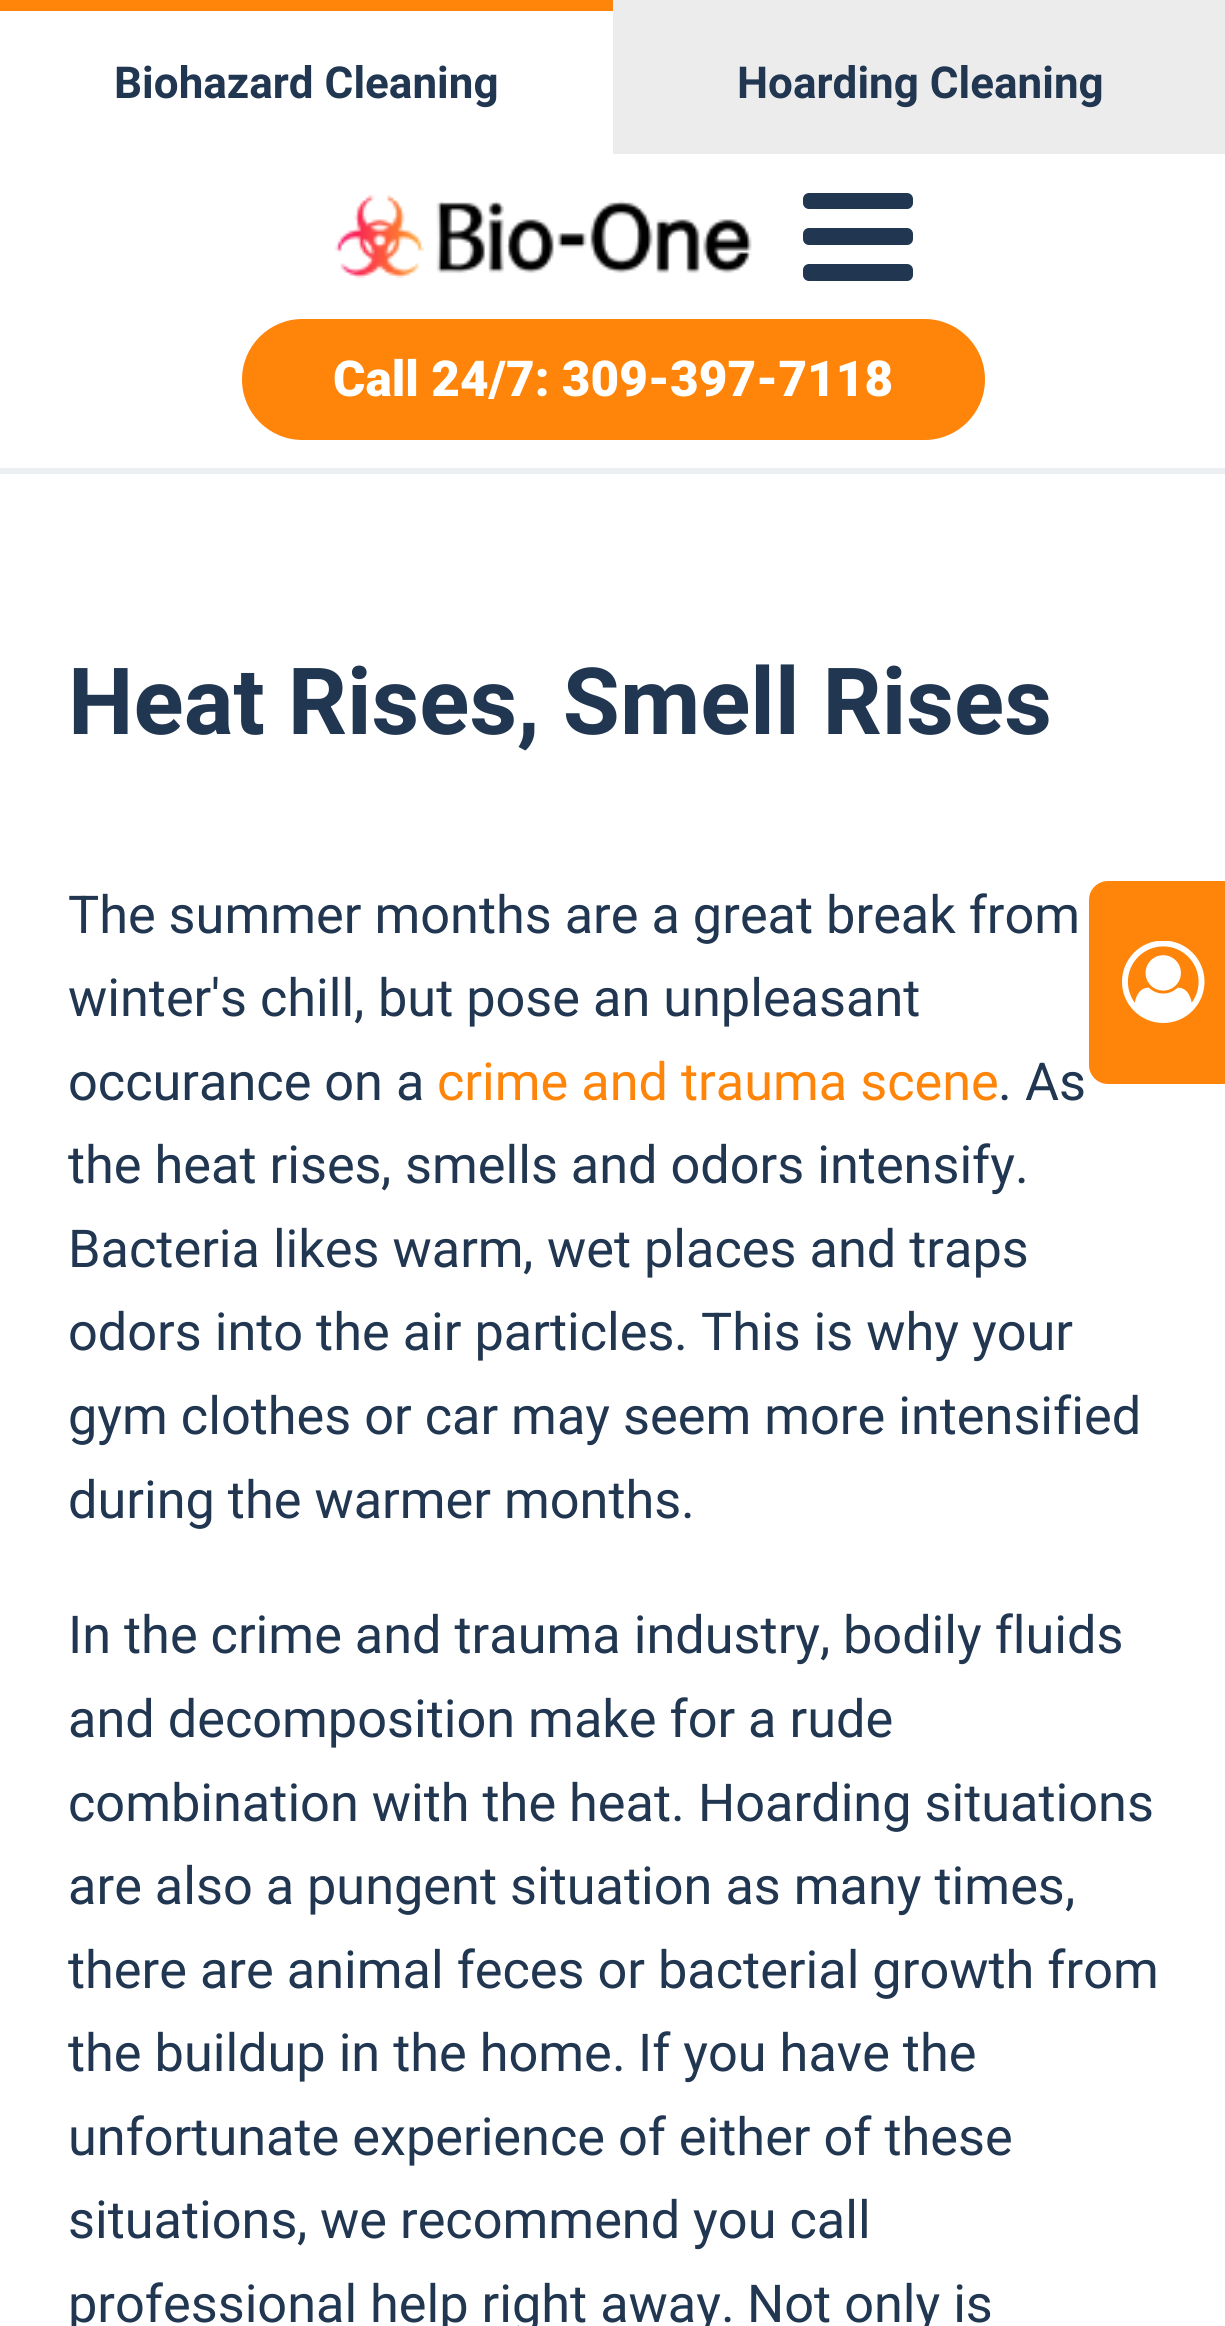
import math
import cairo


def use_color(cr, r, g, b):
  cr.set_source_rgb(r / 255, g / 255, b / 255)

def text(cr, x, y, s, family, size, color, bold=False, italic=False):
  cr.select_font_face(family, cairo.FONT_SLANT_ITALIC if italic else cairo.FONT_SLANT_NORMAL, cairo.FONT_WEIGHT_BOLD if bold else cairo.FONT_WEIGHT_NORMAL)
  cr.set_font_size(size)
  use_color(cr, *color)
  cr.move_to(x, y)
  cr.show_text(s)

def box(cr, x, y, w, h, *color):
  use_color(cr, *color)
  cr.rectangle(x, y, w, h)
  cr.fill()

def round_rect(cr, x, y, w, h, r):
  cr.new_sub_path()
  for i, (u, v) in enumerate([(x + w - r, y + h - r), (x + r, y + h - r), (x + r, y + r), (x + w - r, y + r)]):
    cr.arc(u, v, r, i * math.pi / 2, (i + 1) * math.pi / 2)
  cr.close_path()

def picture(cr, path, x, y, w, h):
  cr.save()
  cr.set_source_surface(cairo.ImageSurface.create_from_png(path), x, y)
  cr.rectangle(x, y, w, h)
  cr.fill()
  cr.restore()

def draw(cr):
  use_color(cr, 255, 255, 255)
  cr.paint()
  box(cr, 0, 468, 1225, 6, 236, 239, 241)
  box(cr, 0, 0, 613, 11, 255, 133, 10)
  box(cr, 613, 0, 612, 154, 236, 236, 236)
  picture(cr, "img_01.png", 334, 194, 418, 85)
  use_color(cr, 33, 54, 80)
  round_rect(cr, 803, 193, 110, 16, 6)
  cr.fill()
  round_rect(cr, 803, 228, 110, 17, 6)
  cr.fill()
  round_rect(cr, 803, 264, 110, 17, 6)
  cr.fill()
  use_color(cr, 255, 133, 10)
  round_rect(cr, 242, 319, 743, 121, 60.5)
  cr.fill()
  cr.new_path()
  cr.move_to(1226, 881)
  cr.line_to(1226, 1084)
  cr.line_to(1108, 1084)
  cr.curve_to(1098, 1084, 1089, 1076, 1089, 1065)
  cr.line_to(1089, 900)
  cr.curve_to(1089, 889, 1098, 881, 1108, 881)
  cr.close_path()
  cr.fill()
  picture(cr, "img_02.png", 1122, 941, 83, 82)
  text(cr, 114, 98, "Biohazard Cleaning", "Roboto", 44, (33, 54, 80), bold=True)
  text(cr, 737, 98, "Hoarding Cleaning", "Roboto", 44, (33, 54, 80), bold=True)
  text(cr, 333, 396, "Call 24/7: 309-397-7118", "Roboto Black", 49.5, (255, 255, 255))
  text(cr, 68, 734, "Heat Rises, Smell Rises", "Roboto", 92.75, (33, 54, 80), bold=True)
  text(cr, 68, 933, "The summer months are a great break from", "Roboto", 52.25, (33, 54, 80))
  text(cr, 68, 1016, "winter", "Roboto", 52.25, (33, 54, 80))
  text(cr, 211, 1016, "'", "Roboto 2", 52.25, (33, 54, 80))
  text(cr, 220, 1016, "s chill", "Roboto", 52.25, (33, 54, 80))
  text(cr, 354, 1016, ",", "Roboto 2", 52.25, (33, 54, 80))
  text(cr, 378, 1016, "but pose an unpleasant", "Roboto", 52.25, (33, 54, 80))
  text(cr, 68, 1100, "occurance on a", "Roboto", 52.25, (33, 54, 80))
  text(cr, 437, 1100, "crime and trauma scene", "Roboto", 52.25, (255, 133, 10))
  text(cr, 998, 1100, ".", "Roboto 2", 52.25, (33, 54, 80))
  text(cr, 1025, 1100, "As", "Roboto", 52.25, (33, 54, 80))
  text(cr, 68, 1183, "the heat rises", "Roboto", 52.25, (33, 54, 80))
  text(cr, 381, 1183, ",", "Roboto 2", 52.25, (33, 54, 80))
  text(cr, 405, 1183, "smells and odors intensify", "Roboto", 52.25, (33, 54, 80))
  text(cr, 1015, 1183, ".", "Roboto 2", 52.25, (33, 54, 80))
  text(cr, 68, 1267, "Bacteria likes warm", "Roboto", 52.25, (33, 54, 80))
  text(cr, 523, 1267, ",", "Roboto 2", 52.25, (33, 54, 80))
  text(cr, 547, 1267, "wet places and traps", "Roboto", 52.25, (33, 54, 80))
  text(cr, 68, 1350, "odors into the air particles", "Roboto", 52.25, (33, 54, 80))
  text(cr, 674, 1350, ".", "Roboto 2", 52.25, (33, 54, 80))
  text(cr, 701, 1350, "This is why your", "Roboto", 52.25, (33, 54, 80))
  text(cr, 68, 1434, "gym clothes or car may seem more intensified", "Roboto", 52.25, (33, 54, 80))
  text(cr, 68, 1518, "during the warmer months", "Roboto", 52.25, (33, 54, 80))
  text(cr, 681, 1518, ".", "Roboto 2", 52.25, (33, 54, 80))
  text(cr, 68, 1653, "In the crime and trauma industry", "Roboto", 52.25, (33, 54, 80))
  text(cr, 820, 1653, ",", "Roboto 2", 52.25, (33, 54, 80))
  text(cr, 843, 1653, "bodily fluids", "Roboto", 52.25, (33, 54, 80))
  text(cr, 68, 1737, "and decomposition make for a rude", "Roboto", 52.25, (33, 54, 80))
  text(cr, 68, 1821, "combination with the heat", "Roboto", 52.25, (33, 54, 80))
  text(cr, 671, 1821, ".", "Roboto 2", 52.25, (33, 54, 80))
  text(cr, 698, 1821, "Hoarding situations", "Roboto", 52.25, (33, 54, 80))
  text(cr, 68, 1904, "are also a pungent situation as many times", "Roboto", 52.25, (33, 54, 80))
  text(cr, 1065, 1904, ",", "Roboto 2", 52.25, (33, 54, 80))
  text(cr, 68, 1988, "there are animal feces or bacterial growth from", "Roboto", 52.25, (33, 54, 80))
  text(cr, 68, 2071, "the buildup in the home", "Roboto", 52.25, (33, 54, 80))
  text(cr, 612, 2071, ".", "Roboto 2", 52.25, (33, 54, 80))
  text(cr, 638, 2071, "If you have the", "Roboto", 52.25, (33, 54, 80))
  text(cr, 68, 2155, "unfortunate experience of either of these", "Roboto", 52.25, (33, 54, 80))
  text(cr, 68, 2238, "situations", "Roboto", 52.25, (33, 54, 80))
  text(cr, 297, 2238, ",", "Roboto 2", 52.25, (33, 54, 80))
  text(cr, 320, 2238, "we recommend you call", "Roboto", 52.25, (33, 54, 80))
  text(cr, 68, 2322, "professional help right away", "Roboto", 52.25, (33, 54, 80))
  text(cr, 721, 2322, ".", "Roboto 2", 52.25, (33, 54, 80))
  text(cr, 747, 2322, "Not only is", "Roboto", 52.25, (33, 54, 80))


surface = cairo.ImageSurface(cairo.FORMAT_RGB24, 1225, 2326)
cr = cairo.Context(surface)
options = cairo.FontOptions()
options.set_hint_metrics(cairo.HINT_METRICS_OFF)
options.set_hint_style(cairo.HINT_STYLE_NONE)
cr.set_font_options(options)
cr.set_miter_limit(4)
draw(cr)
surface.write_to_png("out.png")
